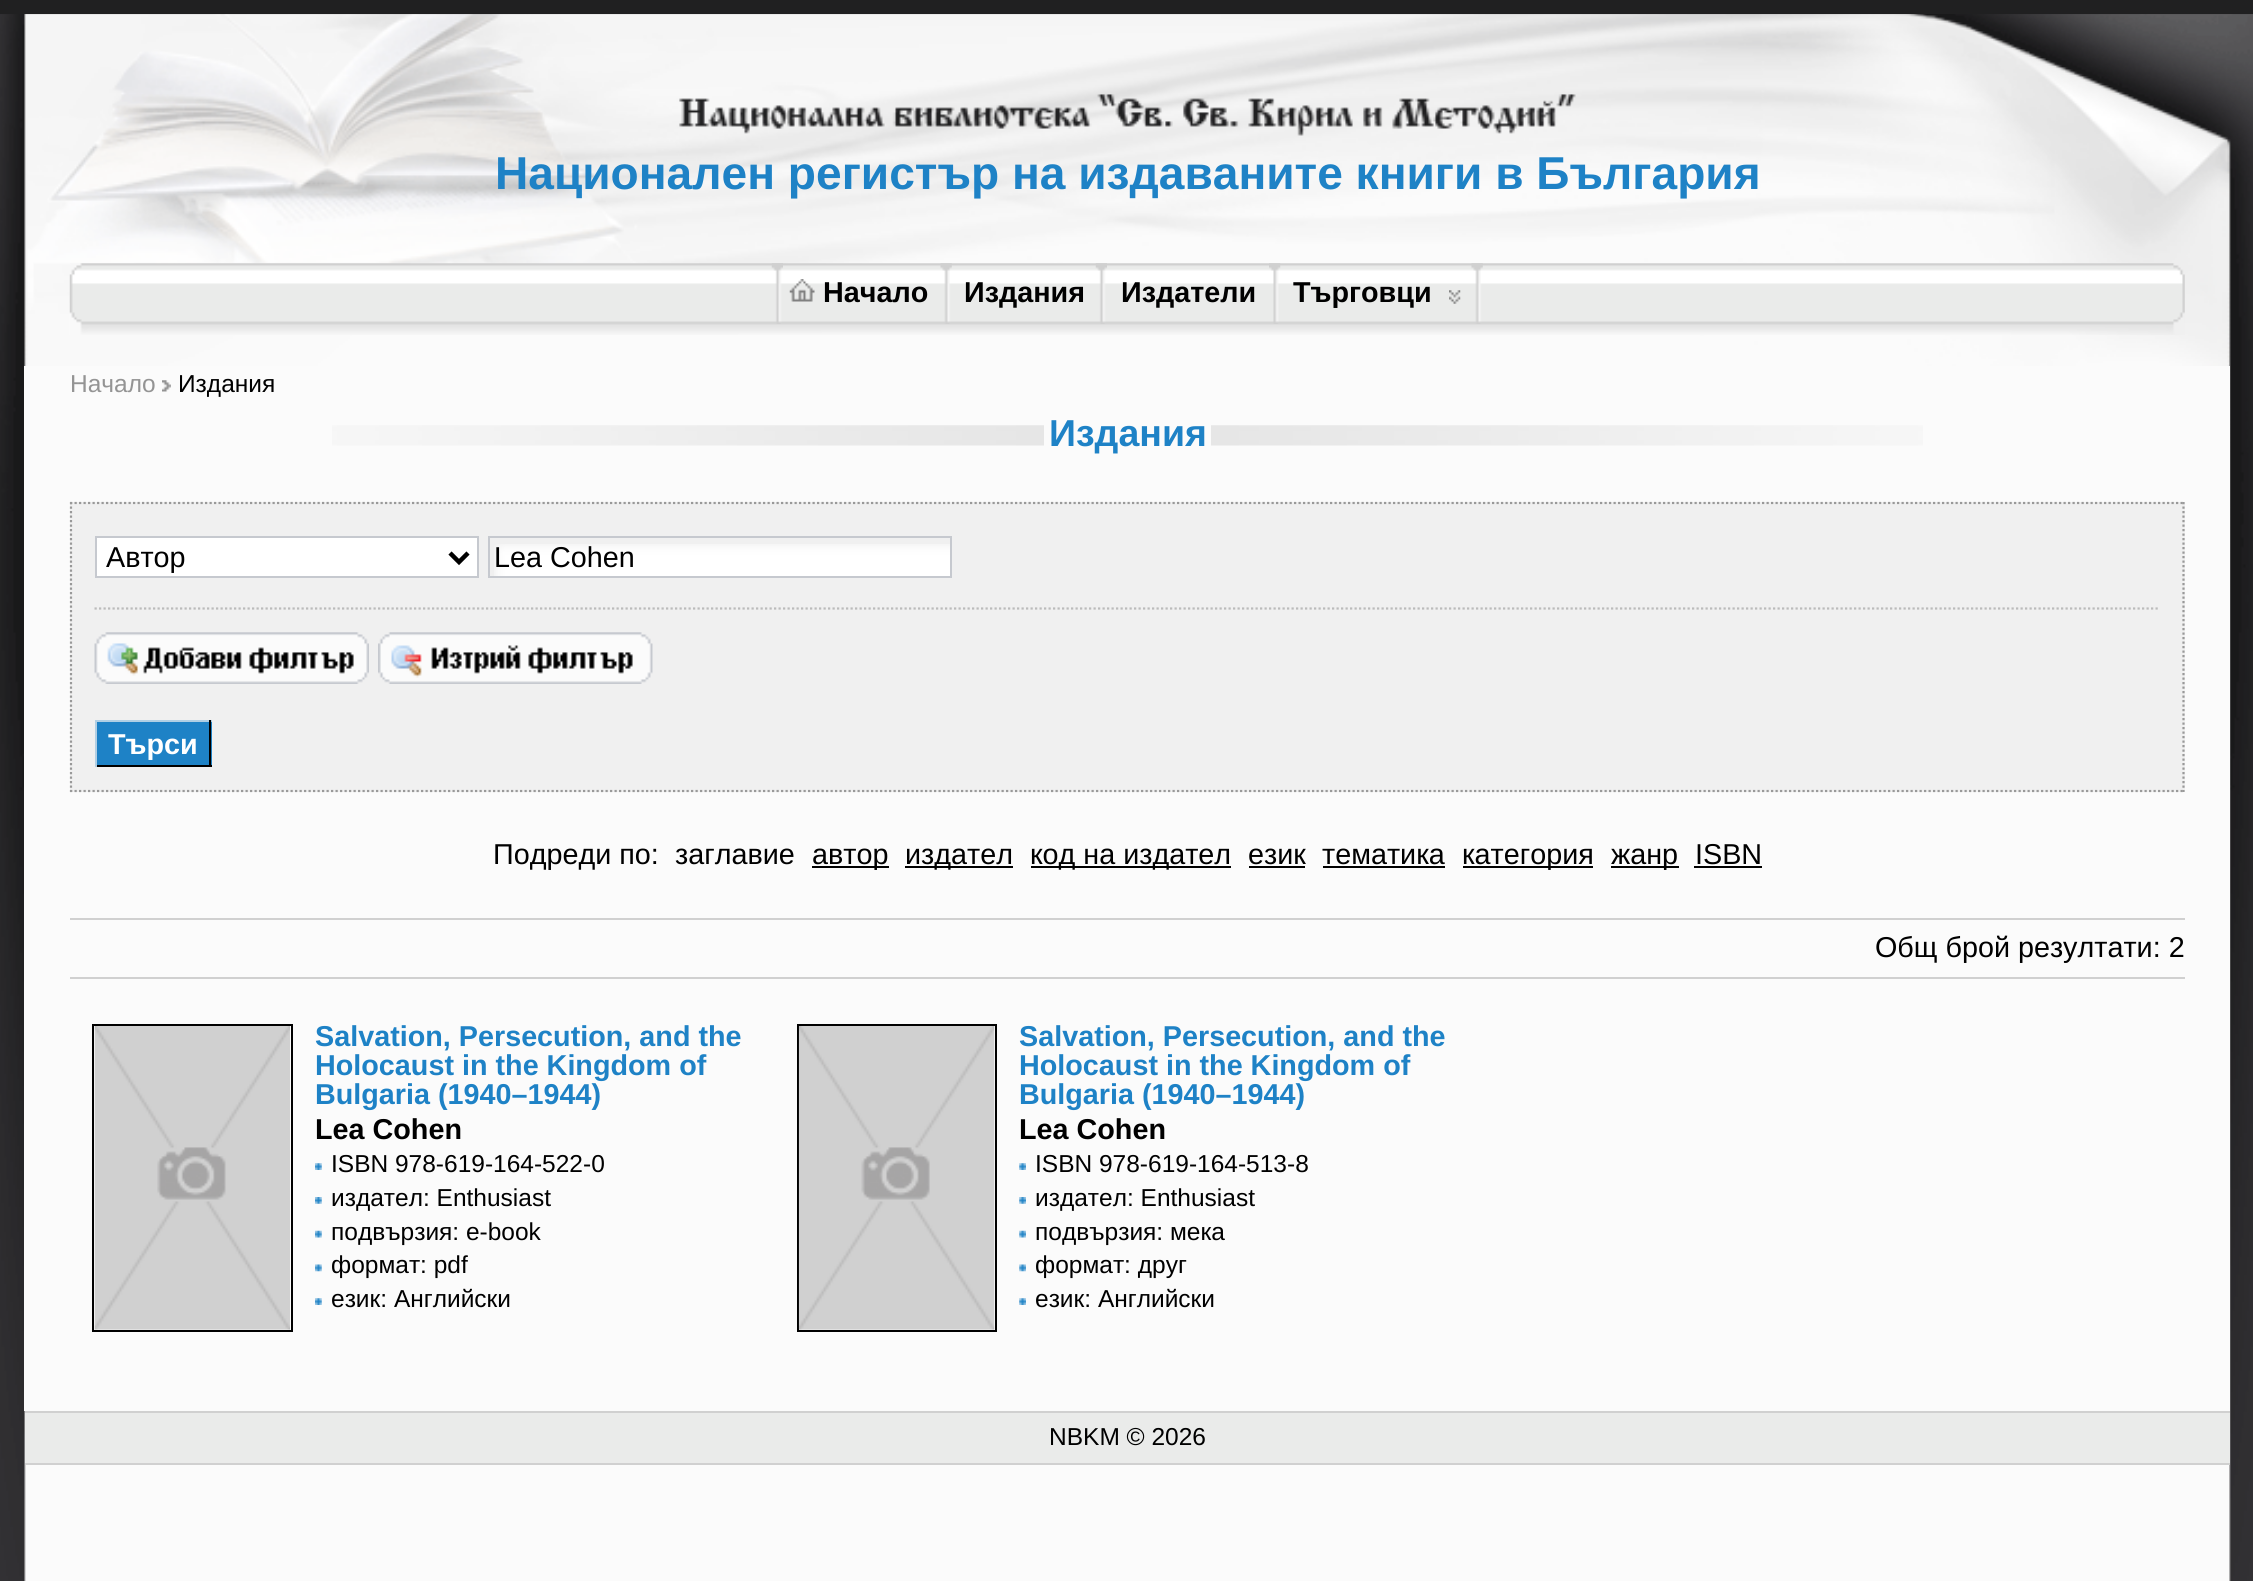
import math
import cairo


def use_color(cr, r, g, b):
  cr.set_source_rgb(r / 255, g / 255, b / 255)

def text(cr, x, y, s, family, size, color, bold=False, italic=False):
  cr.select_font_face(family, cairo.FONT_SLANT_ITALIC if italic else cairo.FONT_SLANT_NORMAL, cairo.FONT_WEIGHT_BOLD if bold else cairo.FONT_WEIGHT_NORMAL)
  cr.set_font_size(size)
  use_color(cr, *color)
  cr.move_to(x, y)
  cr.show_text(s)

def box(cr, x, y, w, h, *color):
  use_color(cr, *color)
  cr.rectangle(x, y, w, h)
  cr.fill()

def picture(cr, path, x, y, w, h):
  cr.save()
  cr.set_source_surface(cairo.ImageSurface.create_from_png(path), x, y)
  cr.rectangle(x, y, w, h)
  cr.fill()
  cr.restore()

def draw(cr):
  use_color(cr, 255, 255, 255)
  cr.paint()
  picture(cr, "img_01.png", 0, 14, 2253, 1567)
  box(cr, 0, 0, 2253, 14, 32, 32, 33)
  picture(cr, "img_02.png", 69, 263, 2116, 72)
  picture(cr, "img_03.png", 771, 263, 12, 61)
  picture(cr, "img_04.png", 940, 263, 12, 61)
  picture(cr, "img_05.png", 789, 279, 26, 23)
  picture(cr, "img_06.png", 1095, 263, 12, 61)
  picture(cr, "img_07.png", 1269, 263, 12, 61)
  picture(cr, "img_04.png", 1471, 263, 12, 61)
  picture(cr, "img_08.png", 1449, 290, 12, 14)
  box(cr, 24, 366, 2206, 1045, 251, 251, 251)
  picture(cr, "img_09.png", 162, 380, 9, 12)
  picture(cr, "img_10.png", 332, 425, 1591, 21)
  box(cr, 1044, 425, 167, 21, 251, 251, 251)
  box(cr, 70, 502, 2115, 290, 240, 240, 240)
  cr.new_path()
  cr.move_to(70, 503)
  cr.line_to(2185, 503)
  use_color(cr, 153, 153, 153)
  cr.set_line_width(2.2)
  cr.set_dash([2.25, 2.25])
  cr.stroke()
  cr.new_path()
  cr.move_to(2183.5, 502)
  cr.line_to(2183.5, 792)
  cr.stroke()
  cr.new_path()
  cr.move_to(70, 791)
  cr.line_to(2185, 791)
  cr.stroke()
  cr.new_path()
  cr.move_to(71, 502)
  cr.line_to(71, 792)
  cr.stroke()
  use_color(cr, 255, 255, 255)
  cr.rectangle(96, 537, 382, 40)
  cr.fill_preserve()
  use_color(cr, 198, 201, 207)
  cr.set_line_width(2)
  cr.set_dash([])
  cr.stroke()
  cr.new_path()
  cr.move_to(450, 553)
  cr.line_to(459, 562)
  cr.line_to(468, 553)
  use_color(cr, 0, 0, 0)
  cr.set_line_width(4.5)
  cr.stroke()
  picture(cr, "img_11.png", 494, 544, 456, 32)
  cr.rectangle(489, 537, 462, 40)
  use_color(cr, 198, 201, 207)
  cr.set_line_width(2)
  cr.stroke()
  cr.new_path()
  cr.move_to(94.5, 608.5)
  cr.line_to(2160, 608.5)
  use_color(cr, 187, 187, 187)
  cr.set_line_width(2.2)
  cr.set_dash([2.25, 2.25])
  cr.stroke()
  picture(cr, "img_12.png", 94, 632, 275, 52)
  picture(cr, "img_13.png", 378, 632, 275, 52)
  box(cr, 97, 722, 115, 43, 30, 130, 198)
  box(cr, 95, 720, 117, 2, 177, 207, 228)
  box(cr, 209, 720, 2, 47, 0, 0, 0)
  box(cr, 95, 765, 117, 2, 0, 0, 0)
  box(cr, 95, 720, 2, 47, 177, 207, 228)
  box(cr, 812, 866, 77, 2, 0, 0, 0)
  box(cr, 905, 866, 108, 2, 0, 0, 0)
  box(cr, 1031, 866, 200, 2, 0, 0, 0)
  box(cr, 1249, 866, 56, 2, 0, 0, 0)
  box(cr, 1323, 866, 122, 2, 0, 0, 0)
  box(cr, 1463, 866, 130, 2, 0, 0, 0)
  box(cr, 1611, 866, 68, 2, 0, 0, 0)
  box(cr, 1694, 866, 68, 2, 0, 0, 0)
  box(cr, 70, 918, 2115, 2, 208, 208, 208)
  box(cr, 70, 977, 2115, 2, 208, 208, 208)
  cr.rectangle(93, 1025, 199, 306)
  use_color(cr, 0, 0, 0)
  cr.set_line_width(2)
  cr.set_dash([])
  cr.stroke()
  picture(cr, "img_14.png", 94, 1026, 196, 304)
  picture(cr, "img_15.png", 315, 1163, 7, 7)
  picture(cr, "img_16.png", 315, 1197, 7, 7)
  picture(cr, "img_17.png", 315, 1230, 7, 8)
  picture(cr, "img_18.png", 315, 1264, 7, 8)
  picture(cr, "img_15.png", 315, 1298, 7, 7)
  cr.rectangle(798, 1025, 198, 306)
  cr.stroke()
  picture(cr, "img_19.png", 798, 1026, 197, 304)
  picture(cr, "img_20.png", 1019, 1163, 7, 7)
  picture(cr, "img_21.png", 1019, 1197, 7, 7)
  picture(cr, "img_22.png", 1019, 1230, 7, 8)
  picture(cr, "img_23.png", 1019, 1264, 7, 8)
  picture(cr, "img_20.png", 1019, 1298, 7, 7)
  box(cr, 25, 1413, 2205, 50, 234, 235, 234)
  box(cr, 25, 1411, 2205, 2, 208, 208, 208)
  box(cr, 25, 1463, 2205, 2, 208, 208, 208)
  text(cr, 495, 189, "Национален регистър на издаваните книги в България", "Liberation Sans", 46.1, (30, 130, 198), bold=True)
  text(cr, 823, 302, "Начало", "Liberation Sans", 28.75, (0, 0, 0), bold=True)
  text(cr, 964, 302, "Издания", "Liberation Sans", 28.75, (0, 0, 0), bold=True)
  text(cr, 1121, 302, "Издатели", "Liberation Sans", 28.75, (0, 0, 0), bold=True)
  text(cr, 1293, 302, "Търговци", "Liberation Sans", 28.75, (0, 0, 0), bold=True)
  text(cr, 70, 392, "Начало", "Liberation Sans", 24.5, (148, 148, 148))
  text(cr, 178, 392, "Издания", "Liberation Sans", 24.5, (0, 0, 0))
  text(cr, 1049, 446, "Издания", "Liberation Sans", 37.5, (30, 130, 198), bold=True)
  text(cr, 106, 567, "Автор", "Liberation Sans", 28.75, (0, 0, 0))
  text(cr, 494, 567, "Lea Cohen", "Liberation Sans", 28.75, (0, 0, 0))
  text(cr, 108, 754, "Търси", "Liberation Sans", 28.75, (255, 255, 255), bold=True)
  text(cr, 493, 864, "Подреди по:", "Liberation Sans", 28.75, (0, 0, 0))
  text(cr, 675, 864, "заглавие", "Liberation Sans", 28.75, (0, 0, 0))
  text(cr, 812, 864, "автор", "Liberation Sans", 28.75, (0, 0, 0))
  text(cr, 905, 864, "издател", "Liberation Sans", 28.75, (0, 0, 0))
  text(cr, 1030, 864, "код на издател", "Liberation Sans", 28.75, (0, 0, 0))
  text(cr, 1248, 864, "език", "Liberation Sans", 28.75, (0, 0, 0))
  text(cr, 1322, 864, "тематика", "Liberation Sans", 28.75, (0, 0, 0))
  text(cr, 1462, 864, "категория", "Liberation Sans", 28.75, (0, 0, 0))
  text(cr, 1611, 864, "жанр", "Liberation Sans", 28.75, (0, 0, 0))
  text(cr, 1695, 864, "ISBN", "Liberation Sans", 28.75, (0, 0, 0))
  text(cr, 1875, 957, "Общ брой резултати: 2", "Liberation Sans", 28.75, (0, 0, 0))
  text(cr, 315, 1046, "Salvation, Persecution, and the", "Liberation Sans", 28.75, (30, 130, 198), bold=True)
  text(cr, 315, 1075, "Holocaust in the Kingdom of", "Liberation Sans", 28.75, (30, 130, 198), bold=True)
  text(cr, 315, 1104, "Bulgaria (1940–1944)", "Liberation Sans", 28.75, (30, 130, 198), bold=True)
  text(cr, 315, 1139, "Lea Cohen", "Liberation Sans", 28.75, (0, 0, 0), bold=True)
  text(cr, 331, 1172, "ISBN 978-619-164-522-0", "Liberation Sans", 24.5, (0, 0, 0))
  text(cr, 331, 1206, "издател: Enthusiast", "Liberation Sans", 24.5, (0, 0, 0))
  text(cr, 331, 1240, "подвързия: e-book", "Liberation Sans", 24.5, (0, 0, 0))
  text(cr, 331, 1273, "формат: pdf", "Liberation Sans", 24.5, (0, 0, 0))
  text(cr, 331, 1307, "език: Английски", "Liberation Sans", 24.5, (0, 0, 0))
  text(cr, 1019, 1046, "Salvation, Persecution, and the", "Liberation Sans", 28.75, (30, 130, 198), bold=True)
  text(cr, 1019, 1075, "Holocaust in the Kingdom of", "Liberation Sans", 28.75, (30, 130, 198), bold=True)
  text(cr, 1019, 1104, "Bulgaria (1940–1944)", "Liberation Sans", 28.75, (30, 130, 198), bold=True)
  text(cr, 1019, 1139, "Lea Cohen", "Liberation Sans", 28.75, (0, 0, 0), bold=True)
  text(cr, 1035, 1172, "ISBN 978-619-164-513-8", "Liberation Sans", 24.5, (0, 0, 0))
  text(cr, 1035, 1206, "издател: Enthusiast", "Liberation Sans", 24.5, (0, 0, 0))
  text(cr, 1035, 1240, "подвързия: мека", "Liberation Sans", 24.5, (0, 0, 0))
  text(cr, 1035, 1273, "формат: друг", "Liberation Sans", 24.5, (0, 0, 0))
  text(cr, 1035, 1307, "език: Английски", "Liberation Sans", 24.5, (0, 0, 0))
  text(cr, 1049, 1445, "NBKM © 2026", "Liberation Sans", 24.5, (0, 0, 0))


surface = cairo.ImageSurface(cairo.FORMAT_RGB24, 2253, 1581)
cr = cairo.Context(surface)
options = cairo.FontOptions()
options.set_hint_metrics(cairo.HINT_METRICS_OFF)
options.set_hint_style(cairo.HINT_STYLE_NONE)
cr.set_font_options(options)
cr.set_miter_limit(4)
draw(cr)
surface.write_to_png("out.png")
